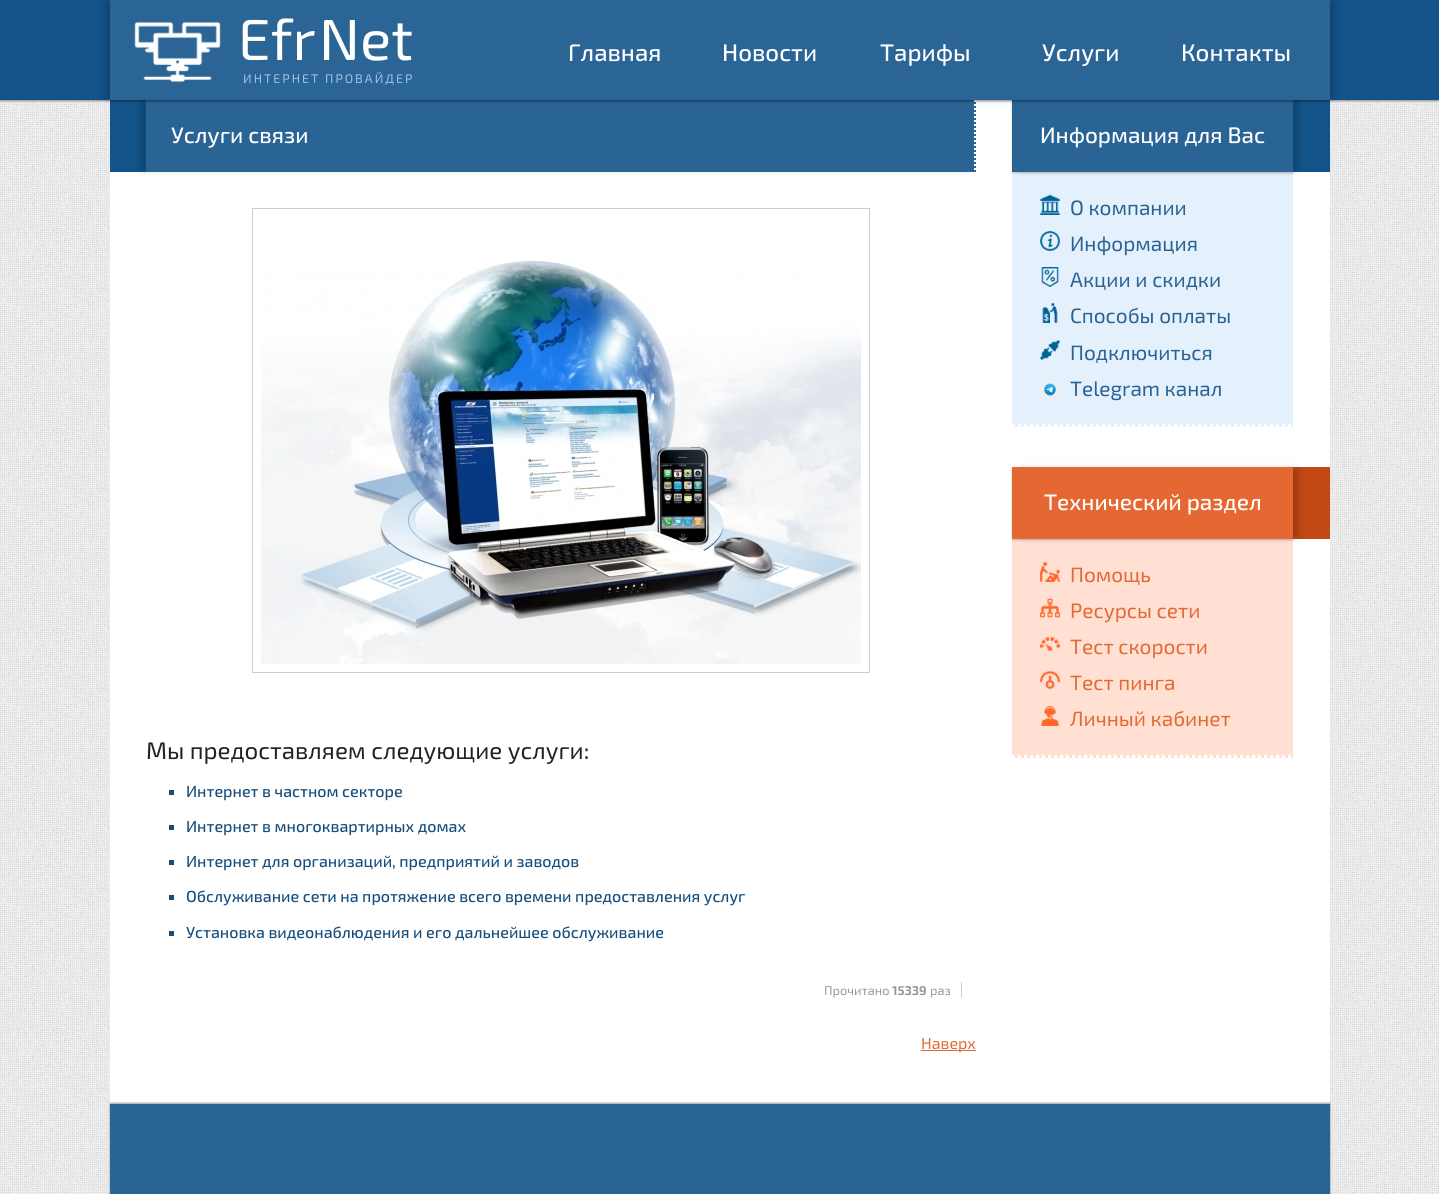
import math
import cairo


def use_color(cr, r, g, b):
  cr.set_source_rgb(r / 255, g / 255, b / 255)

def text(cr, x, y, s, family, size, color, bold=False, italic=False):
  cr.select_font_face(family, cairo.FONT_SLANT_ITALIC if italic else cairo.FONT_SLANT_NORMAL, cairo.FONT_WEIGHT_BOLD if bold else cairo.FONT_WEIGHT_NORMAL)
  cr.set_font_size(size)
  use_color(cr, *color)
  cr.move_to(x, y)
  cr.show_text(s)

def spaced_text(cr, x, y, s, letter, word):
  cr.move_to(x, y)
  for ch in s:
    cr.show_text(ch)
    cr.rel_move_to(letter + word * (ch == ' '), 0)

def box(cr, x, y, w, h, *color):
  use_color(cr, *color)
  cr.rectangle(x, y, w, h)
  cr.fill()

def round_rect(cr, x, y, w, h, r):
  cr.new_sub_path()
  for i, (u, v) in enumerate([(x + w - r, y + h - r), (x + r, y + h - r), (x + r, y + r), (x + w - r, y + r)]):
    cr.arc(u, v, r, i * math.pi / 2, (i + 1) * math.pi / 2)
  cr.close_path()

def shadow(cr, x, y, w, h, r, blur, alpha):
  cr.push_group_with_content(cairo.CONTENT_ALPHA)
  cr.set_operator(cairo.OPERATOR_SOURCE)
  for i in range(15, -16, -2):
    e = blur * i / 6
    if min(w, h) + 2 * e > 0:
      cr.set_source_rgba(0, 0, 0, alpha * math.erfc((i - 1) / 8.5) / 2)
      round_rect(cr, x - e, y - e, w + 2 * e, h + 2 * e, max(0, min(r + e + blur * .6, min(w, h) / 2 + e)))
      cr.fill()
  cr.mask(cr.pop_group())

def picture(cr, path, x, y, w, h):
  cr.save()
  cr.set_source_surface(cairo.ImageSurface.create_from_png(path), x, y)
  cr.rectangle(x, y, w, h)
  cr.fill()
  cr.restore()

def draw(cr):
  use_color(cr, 255, 255, 255)
  cr.paint()
  picture(cr, "img_01.png", 0, 100, 1439, 1094)
  cr.set_source_rgba(1, 1, 1, 0.99)
  cr.rectangle(110, 100, 1220, 1004)
  cr.fill()
  box(cr, 110, 100, 36, 72, 18, 84, 138)
  use_color(cr, 0, 0, 0)
  shadow(cr, 141, 102, 826, 68, 0, 3.5, 0.2)
  box(cr, 146, 100, 830, 72, 41, 100, 148)
  cr.new_path()
  cr.move_to(975, 100)
  cr.line_to(975, 172)
  use_color(cr, 255, 255, 255)
  cr.set_dash([2, 2])
  cr.stroke()
  box(cr, 1012, 172, 281, 255, 228, 240, 251)
  use_color(cr, 0, 0, 0)
  shadow(cr, 1012, 101, 281, 72, 0, 1, 0.2)
  box(cr, 1293, 100, 37, 72, 18, 84, 138)
  use_color(cr, 0, 0, 0)
  shadow(cr, 1021, 102, 277, 68, 0, 3.5, 0.2)
  box(cr, 1012, 100, 281, 72, 41, 100, 148)
  use_color(cr, 0, 0, 0)
  shadow(cr, 0, 1, 1439, 100, 0, 1, 0.4)
  box(cr, 0, 0, 1439, 100, 18, 84, 138)
  use_color(cr, 0, 0, 0)
  shadow(cr, 105, 2, 1216, 96, 0, 3.5, 0.2)
  shadow(cr, 119, 2, 1216, 96, 0, 3.5, 0.2)
  box(cr, 110, 0, 1220, 100, 42, 101, 150)
  picture(cr, "img_02.png", 134, 21, 87, 61)
  cr.rectangle(252.5, 208.5, 617, 464)
  use_color(cr, 204, 204, 204)
  cr.set_line_width(1)
  cr.set_dash([])
  cr.stroke()
  picture(cr, "img_03.png", 261, 260, 600, 404)
  box(cr, 169, 790, 5, 5, 21, 78, 125)
  box(cr, 169, 825, 5, 5, 21, 78, 125)
  box(cr, 169, 860, 5, 5, 21, 78, 125)
  box(cr, 169, 895, 5, 5, 21, 78, 125)
  box(cr, 169, 931, 5, 5, 21, 78, 125)
  box(cr, 961, 982, 1, 16, 204, 204, 204)
  box(cr, 921, 1050, 55, 1, 229, 104, 51)
  cr.new_path()
  cr.move_to(1012, 425.5)
  cr.line_to(1293, 425.5)
  use_color(cr, 255, 255, 255)
  cr.set_line_width(3)
  cr.set_dash([3, 3])
  cr.stroke()
  picture(cr, "img_04.png", 1040, 195, 20, 20)
  picture(cr, "img_05.png", 1040, 231, 20, 20)
  picture(cr, "img_06.png", 1041, 267, 18, 20)
  picture(cr, "img_07.png", 1042, 303, 16, 20)
  picture(cr, "img_08.png", 1040, 340, 20, 20)
  picture(cr, "img_09.png", 1040, 383, 20, 13)
  box(cr, 1012, 539, 281, 219, 255, 224, 211)
  cr.new_path()
  cr.move_to(1012, 756.5)
  cr.line_to(1293, 756.5)
  use_color(cr, 255, 255, 255)
  cr.stroke()
  use_color(cr, 0, 0, 0)
  shadow(cr, 1012, 468, 281, 72, 0, 1, 0.2)
  box(cr, 1293, 467, 37, 72, 194, 72, 20)
  use_color(cr, 0, 0, 0)
  shadow(cr, 1021, 469, 277, 68, 0, 3.5, 0.2)
  box(cr, 1012, 467, 281, 72, 229, 104, 51)
  picture(cr, "img_10.png", 1040, 562, 20, 20)
  picture(cr, "img_11.png", 1040, 598, 20, 20)
  picture(cr, "img_12.png", 1040, 636, 20, 16)
  picture(cr, "img_13.png", 1040, 670, 20, 20)
  picture(cr, "img_14.png", 1041, 706, 19, 20)
  use_color(cr, 0, 0, 0)
  shadow(cr, 110, 1103, 1220, 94, 0, 1, 0.4)
  box(cr, 110, 1104, 1220, 90, 41, 100, 148)
  text(cr, 238, 60, "Efr", "Exo 2", 58, (255, 255, 255))
  text(cr, 319, 60, "Net", "Exo 2", 58, (255, 255, 255))
  cr.set_font_size(12.5)
  use_color(cr, 156, 195, 228)
  spaced_text(cr, 243, 83, "ИНТЕРНЕТ ПРОВАЙДЕР", 2, 0)
  text(cr, 568, 61, "Главная", "Exo 2 Medium", 24, (255, 255, 255))
  text(cr, 722, 61, "Новости", "Exo 2 Medium", 24, (255, 255, 255))
  text(cr, 880, 61, "Тарифы", "Exo 2 Medium", 24, (255, 255, 255))
  text(cr, 1042, 61, "Услуги", "Exo 2 Medium", 24, (255, 255, 255))
  text(cr, 1181, 61, "Контакты", "Exo 2 Medium", 24, (255, 255, 255))
  text(cr, 171, 143, "Услуги связи", "Exo 2 Medium", 22.4, (255, 255, 255))
  text(cr, 146, 759, "Мы предоставляем следующие услуги:", "Exo 2", 24, (34, 34, 34))
  text(cr, 186, 797, "Интернет в частном секторе", "Exo 2 Medium", 16, (21, 78, 125))
  text(cr, 186, 832, "Интернет в многоквартирных домах", "Exo 2 Medium", 16, (21, 78, 125))
  text(cr, 186, 867, "Интернет для организаций, предприятий и заводов", "Exo 2 Medium", 16, (21, 78, 125))
  text(cr, 186, 902, "Обслуживание сети на протяжение всего времени предоставления услуг", "Exo 2 Medium", 16, (21, 78, 125))
  text(cr, 186, 938, "Установка видеонаблюдения и его дальнейшее обслуживание", "Exo 2 Medium", 16, (21, 78, 125))
  text(cr, 824, 995, "Прочитано", "Exo 2", 12.75, (153, 153, 153))
  text(cr, 892, 995, "15339", "Exo 2", 12.75, (153, 153, 153), bold=True)
  text(cr, 930, 995, "раз", "Exo 2", 12.75, (153, 153, 153))
  text(cr, 921, 1049, "Наверх", "Exo 2", 16, (229, 104, 51))
  text(cr, 1040, 143, "Информация для Вас", "Exo 2 Medium", 22.4, (255, 255, 255))
  text(cr, 1070, 215, "О компании", "Exo 2", 20.75, (41, 99, 148))
  text(cr, 1070, 251, "Информация", "Exo 2", 20.75, (41, 99, 148))
  text(cr, 1070, 287, "Акции и скидки", "Exo 2", 20.75, (41, 99, 148))
  text(cr, 1070, 323, "Способы оплаты", "Exo 2", 20.75, (41, 99, 148))
  text(cr, 1070, 360, "Подключиться", "Exo 2", 20.75, (41, 99, 148))
  text(cr, 1070, 396, "Telegram канал", "Exo 2", 20.75, (41, 99, 148))
  text(cr, 1044, 510, "Технический раздел", "Exo 2 Medium", 22.4, (255, 255, 255))
  text(cr, 1070, 582, "Помощь", "Exo 2", 20.75, (229, 104, 51))
  text(cr, 1070, 618, "Ресурсы сети", "Exo 2", 20.75, (229, 104, 51))
  text(cr, 1070, 654, "Тест скорости", "Exo 2", 20.75, (229, 104, 51))
  text(cr, 1070, 690, "Тест пинга", "Exo 2", 20.75, (229, 104, 51))
  text(cr, 1070, 726, "Личный кабинет", "Exo 2", 20.75, (229, 104, 51))


surface = cairo.ImageSurface(cairo.FORMAT_RGB24, 1439, 1194)
cr = cairo.Context(surface)
options = cairo.FontOptions()
options.set_hint_metrics(cairo.HINT_METRICS_OFF)
options.set_hint_style(cairo.HINT_STYLE_NONE)
cr.set_font_options(options)
cr.set_miter_limit(4)
draw(cr)
surface.write_to_png("out.png")
